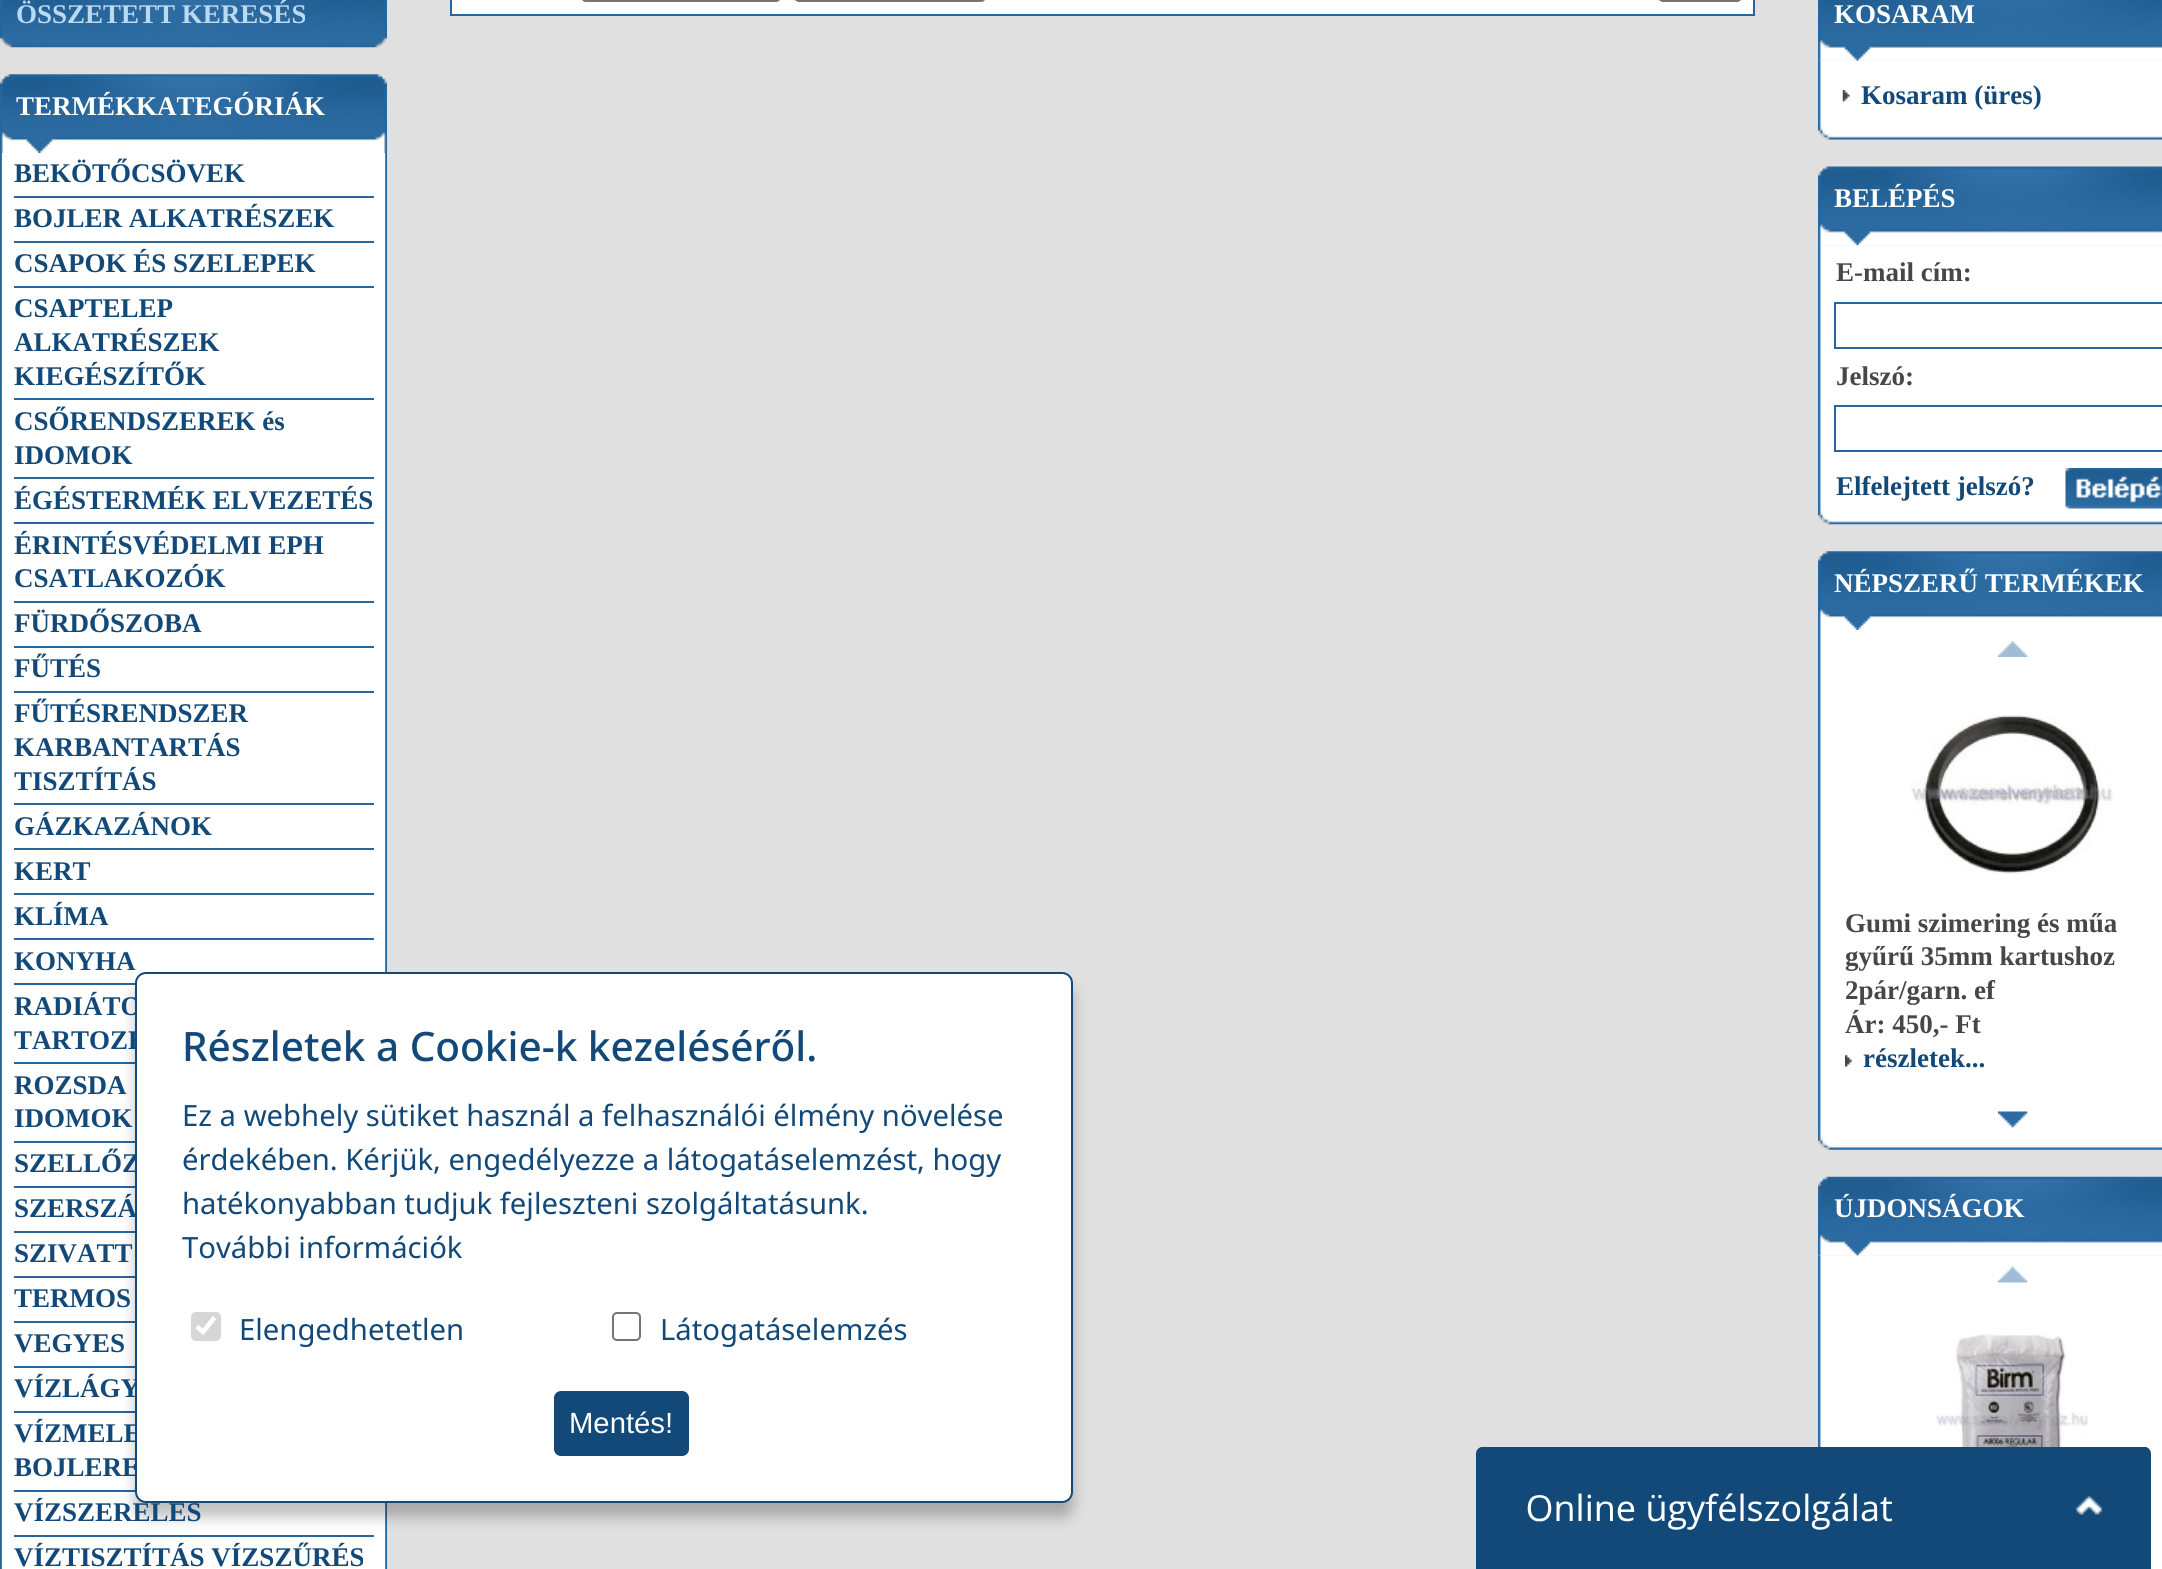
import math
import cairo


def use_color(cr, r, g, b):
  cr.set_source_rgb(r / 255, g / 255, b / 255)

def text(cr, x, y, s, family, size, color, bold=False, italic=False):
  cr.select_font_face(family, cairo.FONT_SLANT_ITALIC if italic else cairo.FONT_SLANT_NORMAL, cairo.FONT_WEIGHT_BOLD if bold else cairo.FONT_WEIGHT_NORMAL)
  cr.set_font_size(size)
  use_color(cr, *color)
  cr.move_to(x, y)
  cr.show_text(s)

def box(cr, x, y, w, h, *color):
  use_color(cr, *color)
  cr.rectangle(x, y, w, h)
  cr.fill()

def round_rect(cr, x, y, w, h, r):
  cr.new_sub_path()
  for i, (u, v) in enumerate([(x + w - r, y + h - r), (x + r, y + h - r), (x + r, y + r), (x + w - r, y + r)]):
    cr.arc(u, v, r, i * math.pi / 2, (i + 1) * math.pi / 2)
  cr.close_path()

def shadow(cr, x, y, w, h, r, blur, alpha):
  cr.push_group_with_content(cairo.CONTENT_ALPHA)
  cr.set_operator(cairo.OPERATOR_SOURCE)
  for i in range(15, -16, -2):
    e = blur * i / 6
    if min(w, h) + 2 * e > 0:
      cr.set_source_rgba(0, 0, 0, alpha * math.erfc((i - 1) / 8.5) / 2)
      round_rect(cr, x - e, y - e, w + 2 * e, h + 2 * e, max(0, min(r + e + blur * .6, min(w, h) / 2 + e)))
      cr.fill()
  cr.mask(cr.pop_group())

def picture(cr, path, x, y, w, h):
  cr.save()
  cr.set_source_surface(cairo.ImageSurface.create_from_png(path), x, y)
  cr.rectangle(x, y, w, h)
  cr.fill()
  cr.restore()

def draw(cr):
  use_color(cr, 224, 224, 224)
  cr.paint()
  picture(cr, "img_01.png", 0, 0, 387, 48)
  picture(cr, "img_02.png", 0, 74, 387, 79)
  picture(cr, "img_03.png", 0, 153, 387, 1416)
  box(cr, 2, 153, 383, 1416, 255, 255, 255)
  box(cr, 14, 196, 360, 2, 39, 101, 155)
  box(cr, 14, 241, 360, 2, 39, 101, 155)
  box(cr, 14, 286, 360, 2, 39, 101, 155)
  box(cr, 14, 398, 360, 2, 39, 101, 155)
  box(cr, 14, 477, 360, 2, 39, 101, 155)
  box(cr, 14, 522, 360, 2, 39, 101, 155)
  box(cr, 14, 601, 360, 2, 39, 101, 155)
  box(cr, 14, 646, 360, 2, 39, 101, 155)
  box(cr, 14, 691, 360, 2, 39, 101, 155)
  box(cr, 14, 803, 360, 2, 39, 101, 155)
  box(cr, 14, 848, 360, 2, 39, 101, 155)
  box(cr, 14, 893, 360, 2, 39, 101, 155)
  box(cr, 14, 938, 360, 2, 39, 101, 155)
  box(cr, 14, 983, 121, 2, 39, 101, 155)
  box(cr, 14, 1062, 121, 2, 39, 101, 155)
  box(cr, 14, 1141, 121, 2, 39, 101, 155)
  box(cr, 14, 1186, 121, 2, 39, 101, 155)
  box(cr, 14, 1231, 121, 2, 39, 101, 155)
  box(cr, 14, 1276, 121, 2, 39, 101, 155)
  box(cr, 14, 1321, 121, 2, 39, 101, 155)
  box(cr, 14, 1366, 121, 2, 39, 101, 155)
  box(cr, 14, 1411, 121, 2, 39, 101, 155)
  box(cr, 14, 1490, 121, 2, 39, 101, 155)
  box(cr, 14, 1535, 360, 2, 39, 101, 155)
  use_color(cr, 255, 255, 255)
  cr.rectangle(451, -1, 1303, 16)
  cr.fill_preserve()
  use_color(cr, 39, 101, 155)
  cr.stroke()
  round_rect(cr, 582, -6, 198, 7, 4)
  use_color(cr, 118, 118, 118)
  cr.stroke()
  round_rect(cr, 795, -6, 190, 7, 4)
  cr.stroke()
  round_rect(cr, 1659, -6, 82, 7, 4)
  cr.stroke()
  picture(cr, "img_04.png", 1818, 0, 344, 61)
  picture(cr, "img_05.png", 1818, 60, 344, 80)
  picture(cr, "img_06.png", 1842, 90, 8, 12)
  picture(cr, "img_07.png", 1818, 166, 344, 80)
  picture(cr, "img_08.png", 1818, 245, 344, 280)
  cr.rectangle(1835, 303, 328, 45)
  use_color(cr, 39, 101, 155)
  cr.stroke()
  cr.rectangle(1835, 406, 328, 45)
  cr.stroke()
  picture(cr, "img_09.png", 2065, 468, 97, 41)
  picture(cr, "img_10.png", 1818, 551, 344, 79)
  picture(cr, "img_11.png", 1818, 630, 344, 520)
  picture(cr, "img_12.png", 1998, 641, 30, 16)
  picture(cr, "img_13.png", 1911, 715, 202, 159)
  picture(cr, "img_14.png", 1845, 1055, 7, 12)
  picture(cr, "img_15.png", 1998, 1111, 30, 17)
  picture(cr, "img_16.png", 1818, 1176, 344, 80)
  picture(cr, "img_17.png", 1818, 1255, 344, 314)
  picture(cr, "img_18.png", 1998, 1266, 30, 17)
  picture(cr, "img_19.png", 1936, 1334, 152, 113)
  use_color(cr, 0, 0, 0)
  shadow(cr, 135, 986, 938, 531, 11, 7, 0.25)
  picture(cr, "img_20.png", 1476, 1447, 675, 122)
  text(cr, 16, 23, "ÖSSZETETT KERESÉS", "Liberation Serif", 27, (187, 217, 241), bold=True)
  text(cr, 16, 115, "TERMÉKKATEGÓRIÁK", "Liberation Serif", 27, (255, 255, 255), bold=True)
  text(cr, 14, 182, "BEKÖTŐCSÖVEK", "Liberation Serif", 27, (18, 73, 120), bold=True)
  text(cr, 14, 227, "BOJLER ALKATRÉSZEK", "Liberation Serif", 27, (18, 73, 120), bold=True)
  text(cr, 14, 272, "CSAPOK ÉS SZELEPEK", "Liberation Serif", 27, (18, 73, 120), bold=True)
  text(cr, 14, 317, "CSAPTELEP", "Liberation Serif", 27, (18, 73, 120), bold=True)
  text(cr, 14, 351, "ALKATRÉSZEK", "Liberation Serif", 27, (18, 73, 120), bold=True)
  text(cr, 14, 385, "KIEGÉSZÍTŐK", "Liberation Serif", 27, (18, 73, 120), bold=True)
  text(cr, 14, 430, "CSŐRENDSZEREK és", "Liberation Serif", 27, (18, 73, 120), bold=True)
  text(cr, 14, 464, "IDOMOK", "Liberation Serif", 27, (18, 73, 120), bold=True)
  text(cr, 14, 509, "ÉGÉSTERMÉK ELVEZETÉS", "Liberation Serif", 27, (18, 73, 120), bold=True)
  text(cr, 14, 554, "ÉRINTÉSVÉDELMI EPH", "Liberation Serif", 27, (18, 73, 120), bold=True)
  text(cr, 14, 587, "CSATLAKOZÓK", "Liberation Serif", 27, (18, 73, 120), bold=True)
  text(cr, 14, 632, "FÜRDŐSZOBA", "Liberation Serif", 27, (18, 73, 120), bold=True)
  text(cr, 14, 677, "FŰTÉS", "Liberation Serif", 27, (18, 73, 120), bold=True)
  text(cr, 14, 722, "FŰTÉSRENDSZER", "Liberation Serif", 27, (18, 73, 120), bold=True)
  text(cr, 14, 756, "KARBANTARTÁS", "Liberation Serif", 27, (18, 73, 120), bold=True)
  cr.save()
  cr.rectangle(14, 693, 360, 110)
  cr.clip()
  text(cr, 14, 790, "TISZTÍTÁS", "Liberation Serif", 27, (18, 73, 120), bold=True)
  cr.restore()
  text(cr, 14, 835, "GÁZKAZÁNOK", "Liberation Serif", 27, (18, 73, 120), bold=True)
  text(cr, 14, 880, "KERT", "Liberation Serif", 27, (18, 73, 120), bold=True)
  text(cr, 14, 925, "KLÍMA", "Liberation Serif", 27, (18, 73, 120), bold=True)
  text(cr, 14, 970, "KONYHA", "Liberation Serif", 27, (18, 73, 120), bold=True)
  text(cr, 14, 1015, "RADIÁTO", "Liberation Serif", 27, (18, 73, 120), bold=True)
  cr.save()
  cr.rectangle(14, 986, 360, 76)
  cr.clip()
  text(cr, 14, 1049, "TARTOZÉ", "Liberation Serif", 27, (18, 73, 120), bold=True)
  cr.restore()
  text(cr, 14, 1094, "ROZSDA", "Liberation Serif", 27, (18, 73, 120), bold=True)
  text(cr, 14, 1127, "IDOMOK", "Liberation Serif", 27, (18, 73, 120), bold=True)
  text(cr, 14, 1172, "SZELLŐZ", "Liberation Serif", 27, (18, 73, 120), bold=True)
  text(cr, 14, 1217, "SZERSZÁ", "Liberation Serif", 27, (18, 73, 120), bold=True)
  text(cr, 14, 1262, "SZIVATT", "Liberation Serif", 27, (18, 73, 120), bold=True)
  cr.save()
  cr.rectangle(14, 1278, 360, 43)
  cr.clip()
  text(cr, 14, 1307, "TERMOS", "Liberation Serif", 27, (18, 73, 120), bold=True)
  cr.restore()
  text(cr, 14, 1352, "VEGYES", "Liberation Serif", 27, (18, 73, 120), bold=True)
  text(cr, 14, 1397, "VÍZLÁGY", "Liberation Serif", 27, (18, 73, 120), bold=True)
  text(cr, 14, 1442, "VÍZMELE", "Liberation Serif", 27, (18, 73, 120), bold=True)
  text(cr, 14, 1476, "BOJLERE", "Liberation Serif", 27, (18, 73, 120), bold=True)
  text(cr, 14, 1521, "VÍZSZERELÉS", "Liberation Serif", 27, (18, 73, 120), bold=True)
  text(cr, 14, 1566, "VÍZTISZTÍTÁS VÍZSZŰRÉS", "Liberation Serif", 27, (18, 73, 120), bold=True)
  text(cr, 1834, 23, "KOSARAM", "Liberation Serif", 27, (255, 255, 255), bold=True)
  text(cr, 1861, 104, "Kosaram (üres)", "Liberation Serif", 27, (18, 73, 120), bold=True)
  text(cr, 1834, 207, "BELÉPÉS", "Liberation Serif", 27, (255, 255, 255), bold=True)
  text(cr, 1836, 281, "E-mail cím:", "Liberation Serif", 27, (71, 71, 71), bold=True)
  text(cr, 1836, 385, "Jelszó:", "Liberation Serif", 27, (71, 71, 71), bold=True)
  text(cr, 1836, 495, "Elfelejtett jelszó?", "Liberation Serif", 27, (18, 73, 120), bold=True)
  text(cr, 1834, 592, "NÉPSZERŰ TERMÉKEK", "Liberation Serif", 27, (255, 255, 255), bold=True)
  text(cr, 1845, 932, "Gumi szimering és műa", "Liberation Serif", 27, (71, 71, 71), bold=True)
  text(cr, 1845, 965, "gyűrű 35mm kartushoz", "Liberation Serif", 27, (71, 71, 71), bold=True)
  text(cr, 1845, 999, "2pár/garn. ef", "Liberation Serif", 27, (71, 71, 71), bold=True)
  text(cr, 1845, 1033, "Ár: 450,- Ft", "Liberation Serif", 27, (71, 71, 71), bold=True)
  text(cr, 1863, 1067, "részletek...", "Liberation Serif", 27, (18, 73, 120), bold=True)
  text(cr, 1834, 1217, "ÚJDONSÁGOK", "Liberation Serif", 27, (255, 255, 255), bold=True)
  round_rect(cr, 136, 973, 936, 529, 10)
  cr.fill_preserve()
  use_color(cr, 18, 73, 120)
  cr.stroke()
  text(cr, 182, 1061, "Részletek a Cookie-k kezeléséről.", "Noto Sans Medium", 40.5, (18, 73, 120))
  text(cr, 182, 1126, "Ez a webhely sütiket használ a felhasználói élmény növelése", "Noto Sans", 29.25, (18, 73, 120))
  text(cr, 182, 1170, "érdekében. Kérjük, engedélyezze a látogatáselemzést, hogy", "Noto Sans", 29.25, (18, 73, 120))
  text(cr, 182, 1214, "hatékonyabban tudjuk fejleszteni szolgáltatásunk.", "Noto Sans", 29.25, (18, 73, 120))
  text(cr, 182, 1258, "További információk", "Noto Sans", 29.25, (18, 73, 120))
  use_color(cr, 214, 214, 214)
  round_rect(cr, 191, 1312, 30, 29, 5)
  cr.fill()
  cr.new_path()
  cr.move_to(197, 1326.5)
  cr.line_to(203, 1332)
  cr.line_to(214.5, 1317.5)
  use_color(cr, 255, 255, 255)
  cr.set_line_width(4.7)
  cr.stroke()
  text(cr, 239, 1340, "Elengedhetetlen", "Noto Sans", 29.25, (18, 73, 120))
  round_rect(cr, 613, 1313, 27, 27, 4)
  use_color(cr, 118, 118, 118)
  cr.set_line_width(2)
  cr.stroke()
  text(cr, 660, 1340, "Látogatáselemzés", "Noto Sans", 29.25, (18, 73, 120))
  round_rect(cr, 554, 1391, 135, 65, 7)
  cr.fill()
  text(cr, 569, 1433, "Mentés!", "Liberation Sans", 29.25, (255, 255, 255))


surface = cairo.ImageSurface(cairo.FORMAT_RGB24, 2162, 1569)
cr = cairo.Context(surface)
options = cairo.FontOptions()
options.set_hint_metrics(cairo.HINT_METRICS_OFF)
options.set_hint_style(cairo.HINT_STYLE_NONE)
cr.set_font_options(options)
cr.set_miter_limit(4)
draw(cr)
surface.write_to_png("out.png")
